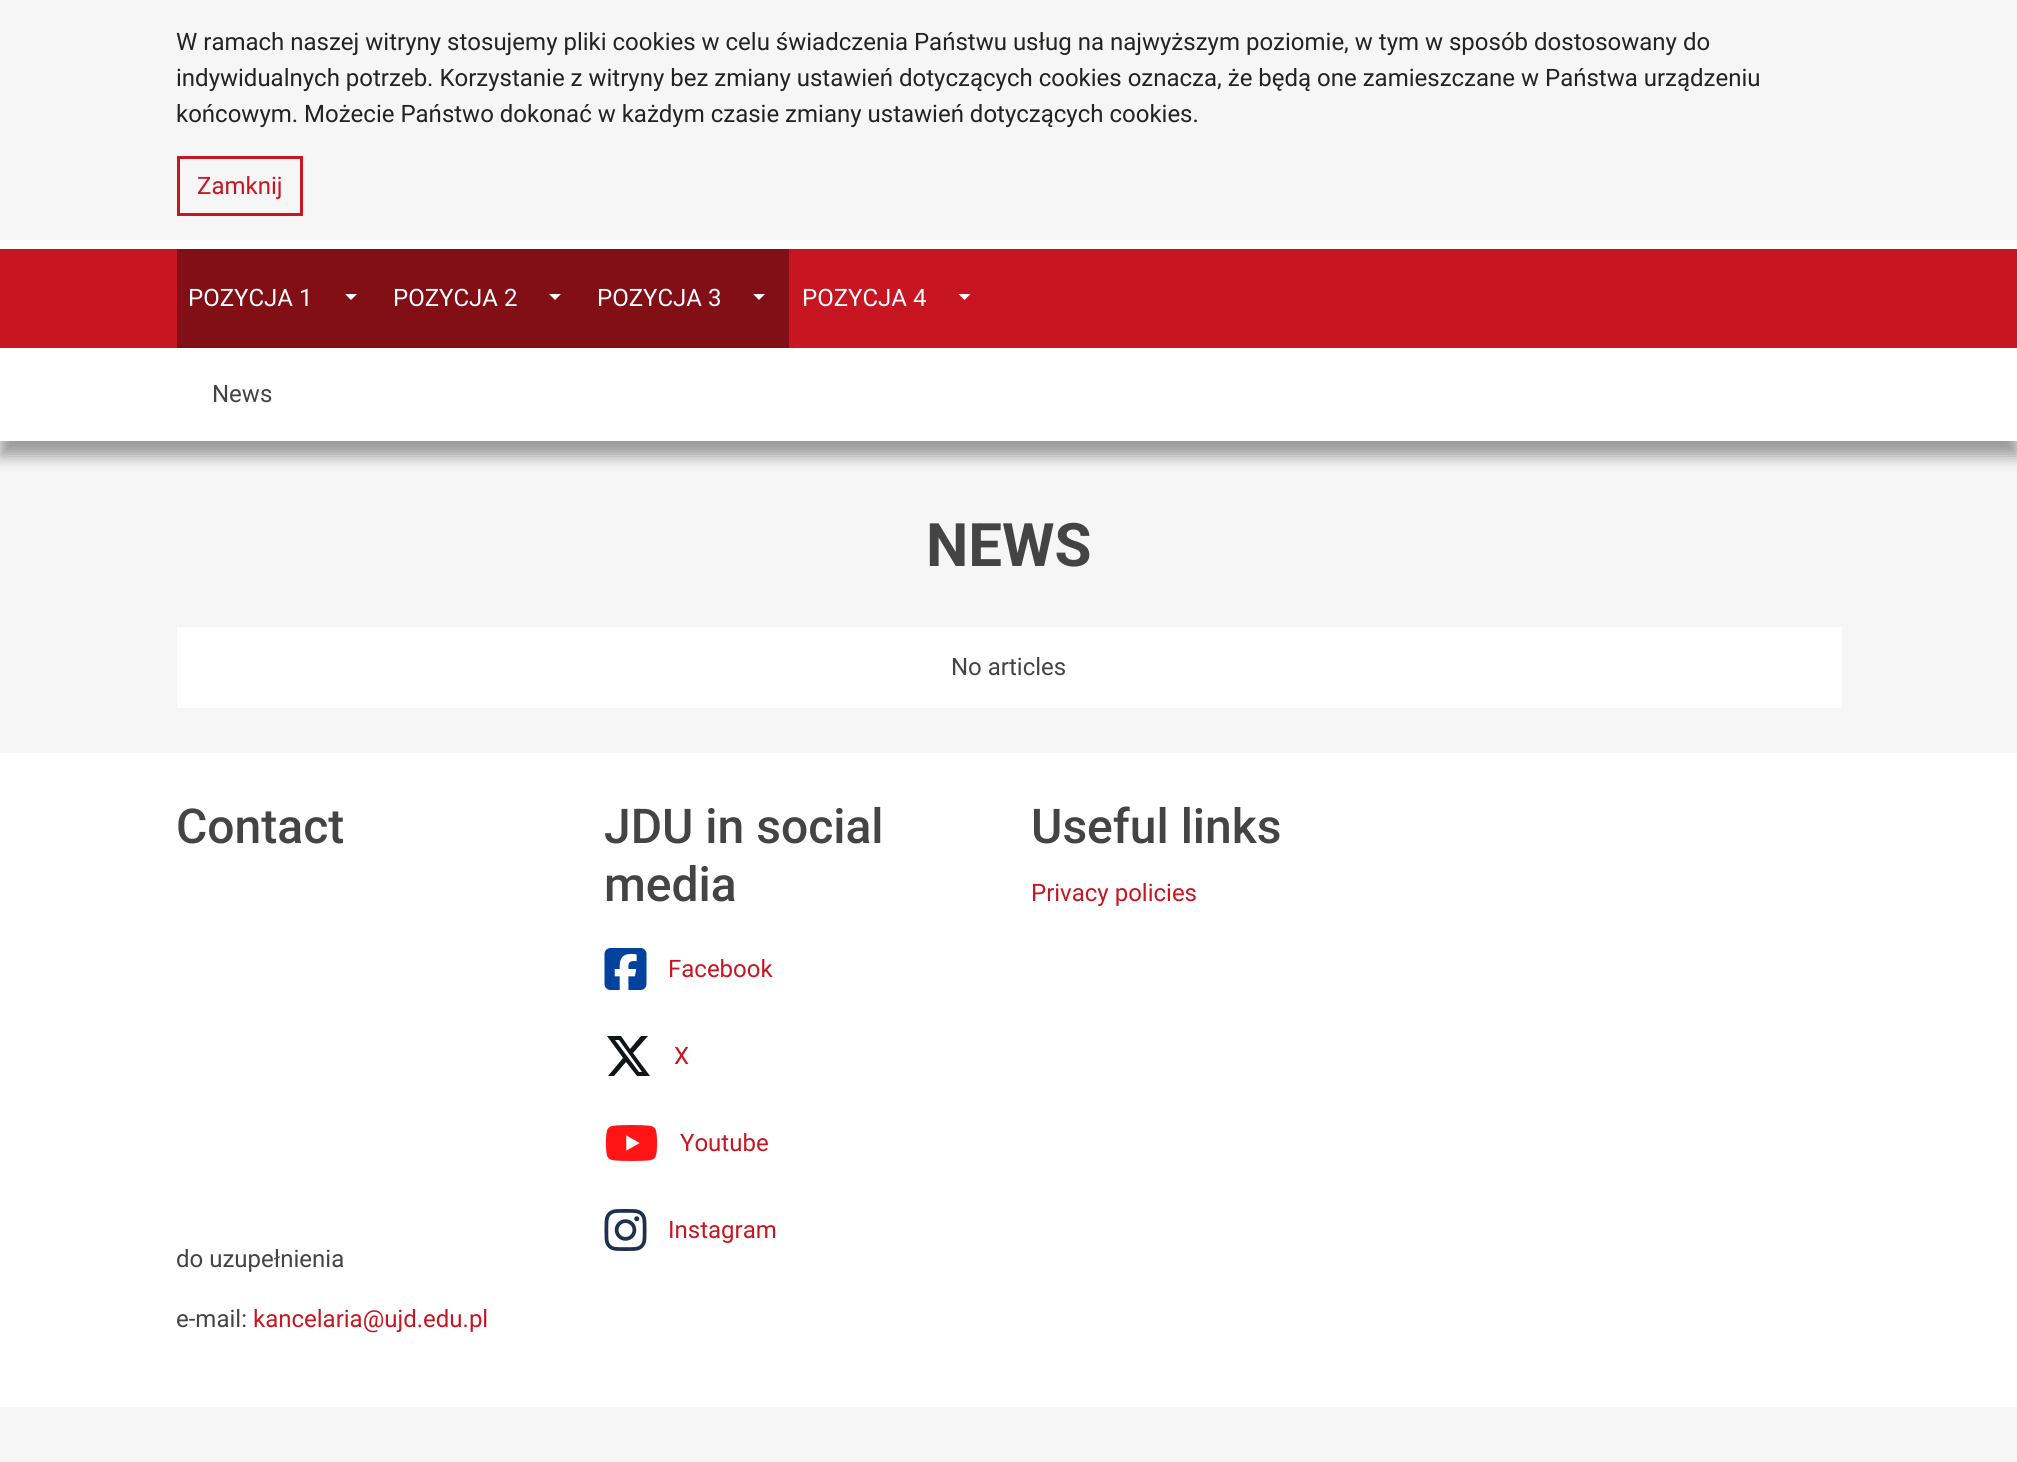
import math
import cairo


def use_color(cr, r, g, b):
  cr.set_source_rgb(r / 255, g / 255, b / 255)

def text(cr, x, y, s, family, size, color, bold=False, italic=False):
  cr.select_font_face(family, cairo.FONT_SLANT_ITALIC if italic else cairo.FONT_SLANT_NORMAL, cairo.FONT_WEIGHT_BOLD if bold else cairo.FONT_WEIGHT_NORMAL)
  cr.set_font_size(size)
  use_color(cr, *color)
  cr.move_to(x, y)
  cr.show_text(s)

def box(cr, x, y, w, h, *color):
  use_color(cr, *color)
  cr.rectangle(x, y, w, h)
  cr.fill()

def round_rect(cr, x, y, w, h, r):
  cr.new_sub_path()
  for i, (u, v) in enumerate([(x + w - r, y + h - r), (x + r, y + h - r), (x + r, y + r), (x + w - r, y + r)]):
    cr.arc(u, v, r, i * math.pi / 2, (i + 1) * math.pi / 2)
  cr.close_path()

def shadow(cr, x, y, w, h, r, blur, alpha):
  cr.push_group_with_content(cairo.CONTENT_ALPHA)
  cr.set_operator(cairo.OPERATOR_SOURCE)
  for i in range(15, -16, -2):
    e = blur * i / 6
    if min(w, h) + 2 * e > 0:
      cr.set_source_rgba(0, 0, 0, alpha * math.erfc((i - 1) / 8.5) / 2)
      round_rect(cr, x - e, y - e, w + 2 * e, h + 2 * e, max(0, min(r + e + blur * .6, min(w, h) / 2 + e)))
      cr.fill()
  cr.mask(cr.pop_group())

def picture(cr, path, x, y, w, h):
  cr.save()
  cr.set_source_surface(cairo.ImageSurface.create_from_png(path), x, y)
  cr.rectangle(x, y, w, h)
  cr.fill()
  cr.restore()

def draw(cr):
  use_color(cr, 246, 246, 246)
  cr.paint()
  cr.rectangle(178.5, 157.5, 123, 57)
  use_color(cr, 199, 22, 34)
  cr.set_line_width(3)
  cr.stroke()
  box(cr, 0, 240, 2017, 9, 255, 255, 255)
  box(cr, 0, 249, 2017, 99, 199, 22, 34)
  use_color(cr, 153, 153, 153)
  shadow(cr, 0, 363, 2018, 93, 0, 7.5, 1)
  box(cr, 177, 249, 612, 99, 130, 14, 22)
  use_color(cr, 255, 255, 255)
  cr.new_path()
  cr.move_to(345, 294)
  cr.line_to(357, 294)
  cr.line_to(351, 300)
  cr.close_path()
  cr.fill()
  cr.new_path()
  cr.move_to(549, 294)
  cr.line_to(561, 294)
  cr.line_to(555, 300)
  cr.close_path()
  cr.fill()
  cr.new_path()
  cr.move_to(753, 294)
  cr.line_to(765, 294)
  cr.line_to(759, 300)
  cr.close_path()
  cr.fill()
  cr.new_path()
  cr.move_to(958.5, 294)
  cr.line_to(970.5, 294)
  cr.line_to(964.5, 300)
  cr.close_path()
  cr.fill()
  box(cr, 0, 348, 2017, 93, 255, 255, 255)
  box(cr, 177, 627, 1665, 81, 255, 255, 255)
  box(cr, 0, 753, 2017, 654, 255, 255, 255)
  picture(cr, "img_01.png", 604, 948, 43, 42)
  use_color(cr, 15, 20, 25)
  cr.new_path()
  cr.move_to(641, 1036)
  cr.line_to(648, 1036)
  cr.line_to(633, 1053)
  cr.line_to(650, 1076)
  cr.line_to(637, 1076)
  cr.line_to(626, 1062)
  cr.line_to(614, 1076)
  cr.line_to(608, 1076)
  cr.line_to(623, 1058)
  cr.line_to(607, 1036)
  cr.line_to(621, 1036)
  cr.line_to(630, 1049)
  cr.close_path()
  cr.move_to(639, 1072)
  cr.line_to(642, 1072)
  cr.line_to(619, 1040)
  cr.line_to(615, 1040)
  cr.close_path()
  cr.fill()
  picture(cr, "img_02.png", 605, 1125, 53, 36)
  picture(cr, "img_03.png", 604, 1209, 43, 42)
  text(cr, 176, 50, "W ramach naszej witryny stosujemy pliki cookies w celu świadczenia Państwu usług na najwyższym poziomie, w tym w sposób dostosowany do", "Roboto", 24, (35, 35, 33))
  text(cr, 176, 86, "indywidualnych potrzeb. Korzystanie z witryny bez zmiany ustawień dotyczących cookies oznacza, że będą one zamieszczane w Państwa urządzeniu", "Roboto", 24, (35, 35, 33))
  text(cr, 176, 122, "końcowym. Możecie Państwo dokonać w każdym czasie zmiany ustawień dotyczących cookies.", "Roboto", 24, (35, 35, 33))
  text(cr, 197, 194, "Zamknij", "Roboto", 24, (199, 22, 34))
  text(cr, 188, 306, "POZYCJA 1", "Roboto", 24, (255, 255, 255))
  text(cr, 393, 306, "POZYCJA 2", "Roboto", 24, (255, 255, 255))
  text(cr, 597, 306, "POZYCJA 3", "Roboto", 24, (255, 255, 255))
  text(cr, 802, 306, "POZYCJA 4", "Roboto", 24, (255, 255, 255))
  text(cr, 212, 402, "News", "Roboto", 24, (68, 68, 68))
  text(cr, 926, 566, "NEWS", "Roboto", 60, (68, 68, 68), bold=True)
  text(cr, 951, 675, "No articles", "Roboto", 24, (68, 68, 68))
  text(cr, 176, 843, "Contact", "Roboto Medium", 48, (68, 68, 68))
  text(cr, 176, 1267, "do uzupełnienia", "Roboto", 24, (68, 68, 68))
  text(cr, 176, 1327, "e-mail:", "Roboto", 24, (68, 68, 68))
  text(cr, 253, 1327, "kancelaria@ujd.edu.pl", "Roboto", 24, (199, 22, 34))
  text(cr, 604, 843, "JDU in social", "Roboto Medium", 48, (68, 68, 68))
  text(cr, 604, 901, "media", "Roboto Medium", 48, (68, 68, 68))
  text(cr, 668, 977, "Facebook", "Roboto", 24, (199, 22, 34))
  text(cr, 674, 1064, "X", "Roboto", 24, (199, 22, 34))
  text(cr, 680, 1151, "Youtube", "Roboto", 24, (199, 22, 34))
  text(cr, 668, 1238, "Instagram", "Roboto", 24, (199, 22, 34))
  text(cr, 1031, 843, "Useful links", "Roboto Medium", 48, (68, 68, 68))
  text(cr, 1031, 901, "Privacy policies", "Roboto", 24, (199, 22, 34))


surface = cairo.ImageSurface(cairo.FORMAT_RGB24, 2017, 1462)
cr = cairo.Context(surface)
options = cairo.FontOptions()
options.set_hint_metrics(cairo.HINT_METRICS_OFF)
options.set_hint_style(cairo.HINT_STYLE_NONE)
cr.set_font_options(options)
cr.set_miter_limit(4)
draw(cr)
surface.write_to_png("out.png")
